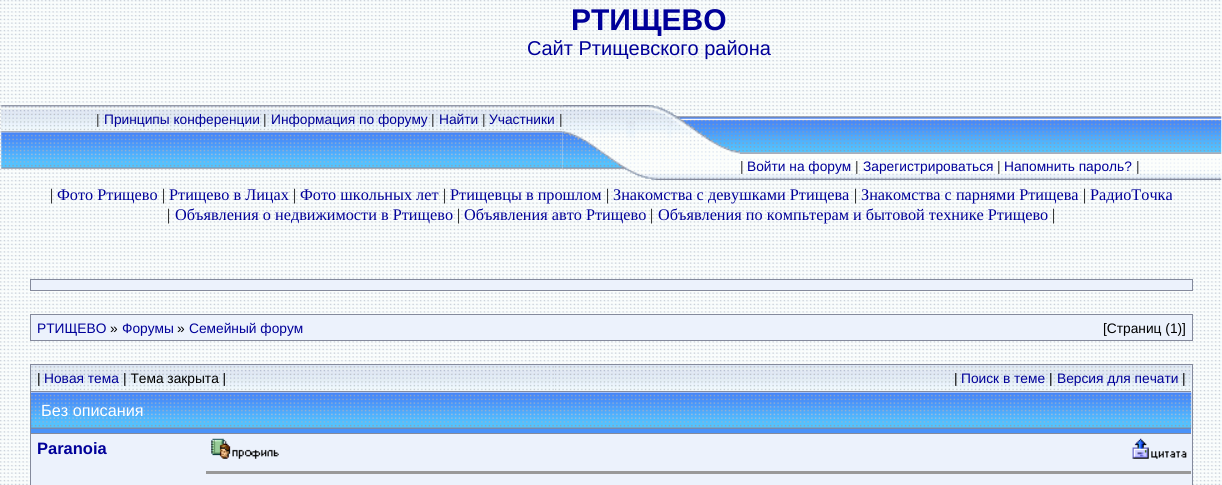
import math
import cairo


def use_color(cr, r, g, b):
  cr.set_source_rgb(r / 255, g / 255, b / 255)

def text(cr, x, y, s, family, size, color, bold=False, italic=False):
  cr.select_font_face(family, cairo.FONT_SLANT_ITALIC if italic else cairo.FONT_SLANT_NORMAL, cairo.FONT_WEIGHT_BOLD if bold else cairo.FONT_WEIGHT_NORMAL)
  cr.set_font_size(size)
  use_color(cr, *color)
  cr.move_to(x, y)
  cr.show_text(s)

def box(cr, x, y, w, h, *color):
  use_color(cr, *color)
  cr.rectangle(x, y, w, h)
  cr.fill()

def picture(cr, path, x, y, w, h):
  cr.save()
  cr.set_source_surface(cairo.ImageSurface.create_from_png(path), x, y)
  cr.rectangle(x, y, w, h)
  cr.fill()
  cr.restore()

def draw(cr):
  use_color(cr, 255, 255, 255)
  cr.paint()
  picture(cr, "img_01.png", 0, 0, 1222, 485)
  picture(cr, "img_02.png", 1, 105, 562, 28)
  picture(cr, "img_03.png", 1, 132, 562, 37)
  picture(cr, "img_04.png", 562, 105, 178, 75)
  picture(cr, "img_05.png", 740, 116, 482, 37)
  picture(cr, "img_06.png", 740, 152, 482, 28)
  use_color(cr, 236, 242, 252)
  cr.rectangle(30.5, 279.5, 1162, 11)
  cr.fill_preserve()
  use_color(cr, 132, 138, 156)
  cr.set_line_width(1)
  cr.stroke()
  use_color(cr, 236, 242, 252)
  cr.rectangle(30.5, 314.5, 1162, 26)
  cr.fill_preserve()
  use_color(cr, 132, 138, 156)
  cr.stroke()
  use_color(cr, 236, 242, 252)
  cr.rectangle(30.5, 364.5, 1162, 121)
  cr.fill_preserve()
  use_color(cr, 132, 138, 156)
  cr.stroke()
  picture(cr, "img_07.png", 31, 365, 524, 28)
  box(cr, 31, 391, 524, 1, 132, 138, 156)
  picture(cr, "img_08.png", 555, 365, 637, 28)
  box(cr, 555, 391, 636, 1, 132, 138, 156)
  box(cr, 31, 393, 1160, 36, 72, 135, 247)
  picture(cr, "img_09.png", 31, 392, 1161, 37)
  box(cr, 31, 433, 1160, 1, 132, 138, 156)
  box(cr, 31, 429, 1160, 4, 74, 147, 249)
  box(cr, 206, 471, 985, 3, 153, 153, 153)
  picture(cr, "img_10.png", 211, 438, 68, 21)
  picture(cr, "img_11.png", 1132, 438, 55, 21)
  text(cr, 571, 30, "РТИЩЕВО", "Liberation Sans", 30, (0, 0, 153), bold=True)
  text(cr, 527, 55, "Сайт Ртищевского района", "Liberation Sans", 20, (0, 0, 153))
  text(cr, 96, 124, "|", "Liberation Sans", 13.75, (51, 51, 51))
  text(cr, 104, 124, "Принципы конференции", "Liberation Sans", 13.75, (0, 0, 153))
  text(cr, 263, 124, "|", "Liberation Sans", 13.75, (51, 51, 51))
  text(cr, 271, 124, "Информация по форуму", "Liberation Sans", 13.75, (0, 0, 153))
  text(cr, 431, 124, "|", "Liberation Sans", 13.75, (51, 51, 51))
  text(cr, 439, 124, "Найти", "Liberation Sans", 13.75, (0, 0, 153))
  text(cr, 482, 124, "|", "Liberation Sans", 13.75, (51, 51, 51))
  text(cr, 489, 124, "Участники", "Liberation Sans", 13.75, (0, 0, 153))
  text(cr, 559, 124, "|", "Liberation Sans", 13.75, (51, 51, 51))
  text(cr, 740, 171, "|", "Liberation Sans", 13.75, (51, 51, 51))
  text(cr, 747, 171, "Войти на форум", "Liberation Sans", 13.75, (0, 0, 153))
  text(cr, 855, 171, "|", "Liberation Sans", 13.75, (51, 51, 51))
  text(cr, 863, 171, "Зарегистрироваться", "Liberation Sans", 13.75, (0, 0, 153))
  text(cr, 997, 171, "|", "Liberation Sans", 13.75, (51, 51, 51))
  text(cr, 1004, 171, "Напомнить пароль?", "Liberation Sans", 13.75, (0, 0, 153))
  text(cr, 1136, 171, "|", "Liberation Sans", 13.75, (51, 51, 51))
  text(cr, 50, 200, "|", "Liberation Serif", 16.25, (0, 0, 0))
  text(cr, 57, 200, "Фото Ртищево", "Liberation Serif", 16.25, (0, 0, 153))
  text(cr, 162, 200, "|", "Liberation Serif", 16.25, (0, 0, 0))
  text(cr, 169, 200, "Ртищево в Лицах", "Liberation Serif", 16.25, (0, 0, 153))
  text(cr, 293, 200, "|", "Liberation Serif", 16.25, (0, 0, 0))
  text(cr, 300, 200, "Фото школьных лет", "Liberation Serif", 16.25, (0, 0, 153))
  text(cr, 443, 200, "|", "Liberation Serif", 16.25, (0, 0, 0))
  text(cr, 450, 200, "Ртищевцы в прошлом", "Liberation Serif", 16.25, (0, 0, 153))
  text(cr, 606, 200, "|", "Liberation Serif", 16.25, (0, 0, 0))
  text(cr, 613, 200, "Знакомства с девушками Ртищева", "Liberation Serif", 16.25, (0, 0, 153))
  text(cr, 854, 200, "|", "Liberation Serif", 16.25, (0, 0, 0))
  text(cr, 861, 200, "Знакомства с парнями Ртищева", "Liberation Serif", 16.25, (0, 0, 153))
  text(cr, 1083, 200, "|", "Liberation Serif", 16.25, (0, 0, 0))
  text(cr, 1090, 200, "РадиоТочка", "Liberation Serif", 16.25, (0, 0, 153))
  text(cr, 167, 220, "|", "Liberation Serif", 16.25, (0, 0, 0))
  text(cr, 175, 220, "Объявления о недвижимости в Ртищево", "Liberation Serif", 16.25, (0, 0, 153))
  text(cr, 457, 220, "|", "Liberation Serif", 16.25, (0, 0, 0))
  text(cr, 464, 220, "Объявления авто Ртищево", "Liberation Serif", 16.25, (0, 0, 153))
  text(cr, 650, 220, "|", "Liberation Serif", 16.25, (0, 0, 0))
  text(cr, 658, 220, "Объявления по компьтерам и бытовой технике Ртищево", "Liberation Serif", 16.25, (0, 0, 153))
  text(cr, 1052, 220, "|", "Liberation Serif", 16.25, (0, 0, 0))
  text(cr, 37, 333, "РТИЩЕВО", "Liberation Sans", 13.75, (0, 0, 153))
  text(cr, 110, 333, "»", "Liberation Sans", 13.75, (0, 0, 0))
  text(cr, 122, 333, "Форумы", "Liberation Sans", 13.75, (0, 0, 153))
  text(cr, 177, 333, "»", "Liberation Sans", 13.75, (0, 0, 0))
  text(cr, 189, 333, "Семейный форум", "Liberation Sans", 13.75, (0, 0, 153))
  text(cr, 1103, 333, "[Страниц (1)]", "Liberation Sans", 13.75, (0, 0, 0))
  text(cr, 37, 383, "|", "Liberation Sans", 13.75, (0, 0, 0))
  text(cr, 44, 383, "Новая тема", "Liberation Sans", 13.75, (0, 0, 153))
  text(cr, 123, 383, "| Тема закрыта |", "Liberation Sans", 13.75, (0, 0, 0))
  text(cr, 954, 383, "|", "Liberation Sans", 13.75, (0, 0, 0))
  text(cr, 961, 383, "Поиск в теме", "Liberation Sans", 13.75, (0, 0, 153))
  text(cr, 1049, 383, "|", "Liberation Sans", 13.75, (0, 0, 0))
  text(cr, 1057, 383, "Версия для печати", "Liberation Sans", 13.75, (0, 0, 153))
  text(cr, 1182, 383, "|", "Liberation Sans", 13.75, (0, 0, 0))
  text(cr, 41, 416, "Без описания", "Liberation Sans", 16.25, (255, 255, 255))
  text(cr, 37, 454, "Paranoia", "Liberation Sans", 16.5, (0, 0, 153), bold=True)


surface = cairo.ImageSurface(cairo.FORMAT_RGB24, 1222, 485)
cr = cairo.Context(surface)
options = cairo.FontOptions()
options.set_hint_metrics(cairo.HINT_METRICS_OFF)
options.set_hint_style(cairo.HINT_STYLE_NONE)
cr.set_font_options(options)
cr.set_miter_limit(4)
draw(cr)
surface.write_to_png("out.png")
